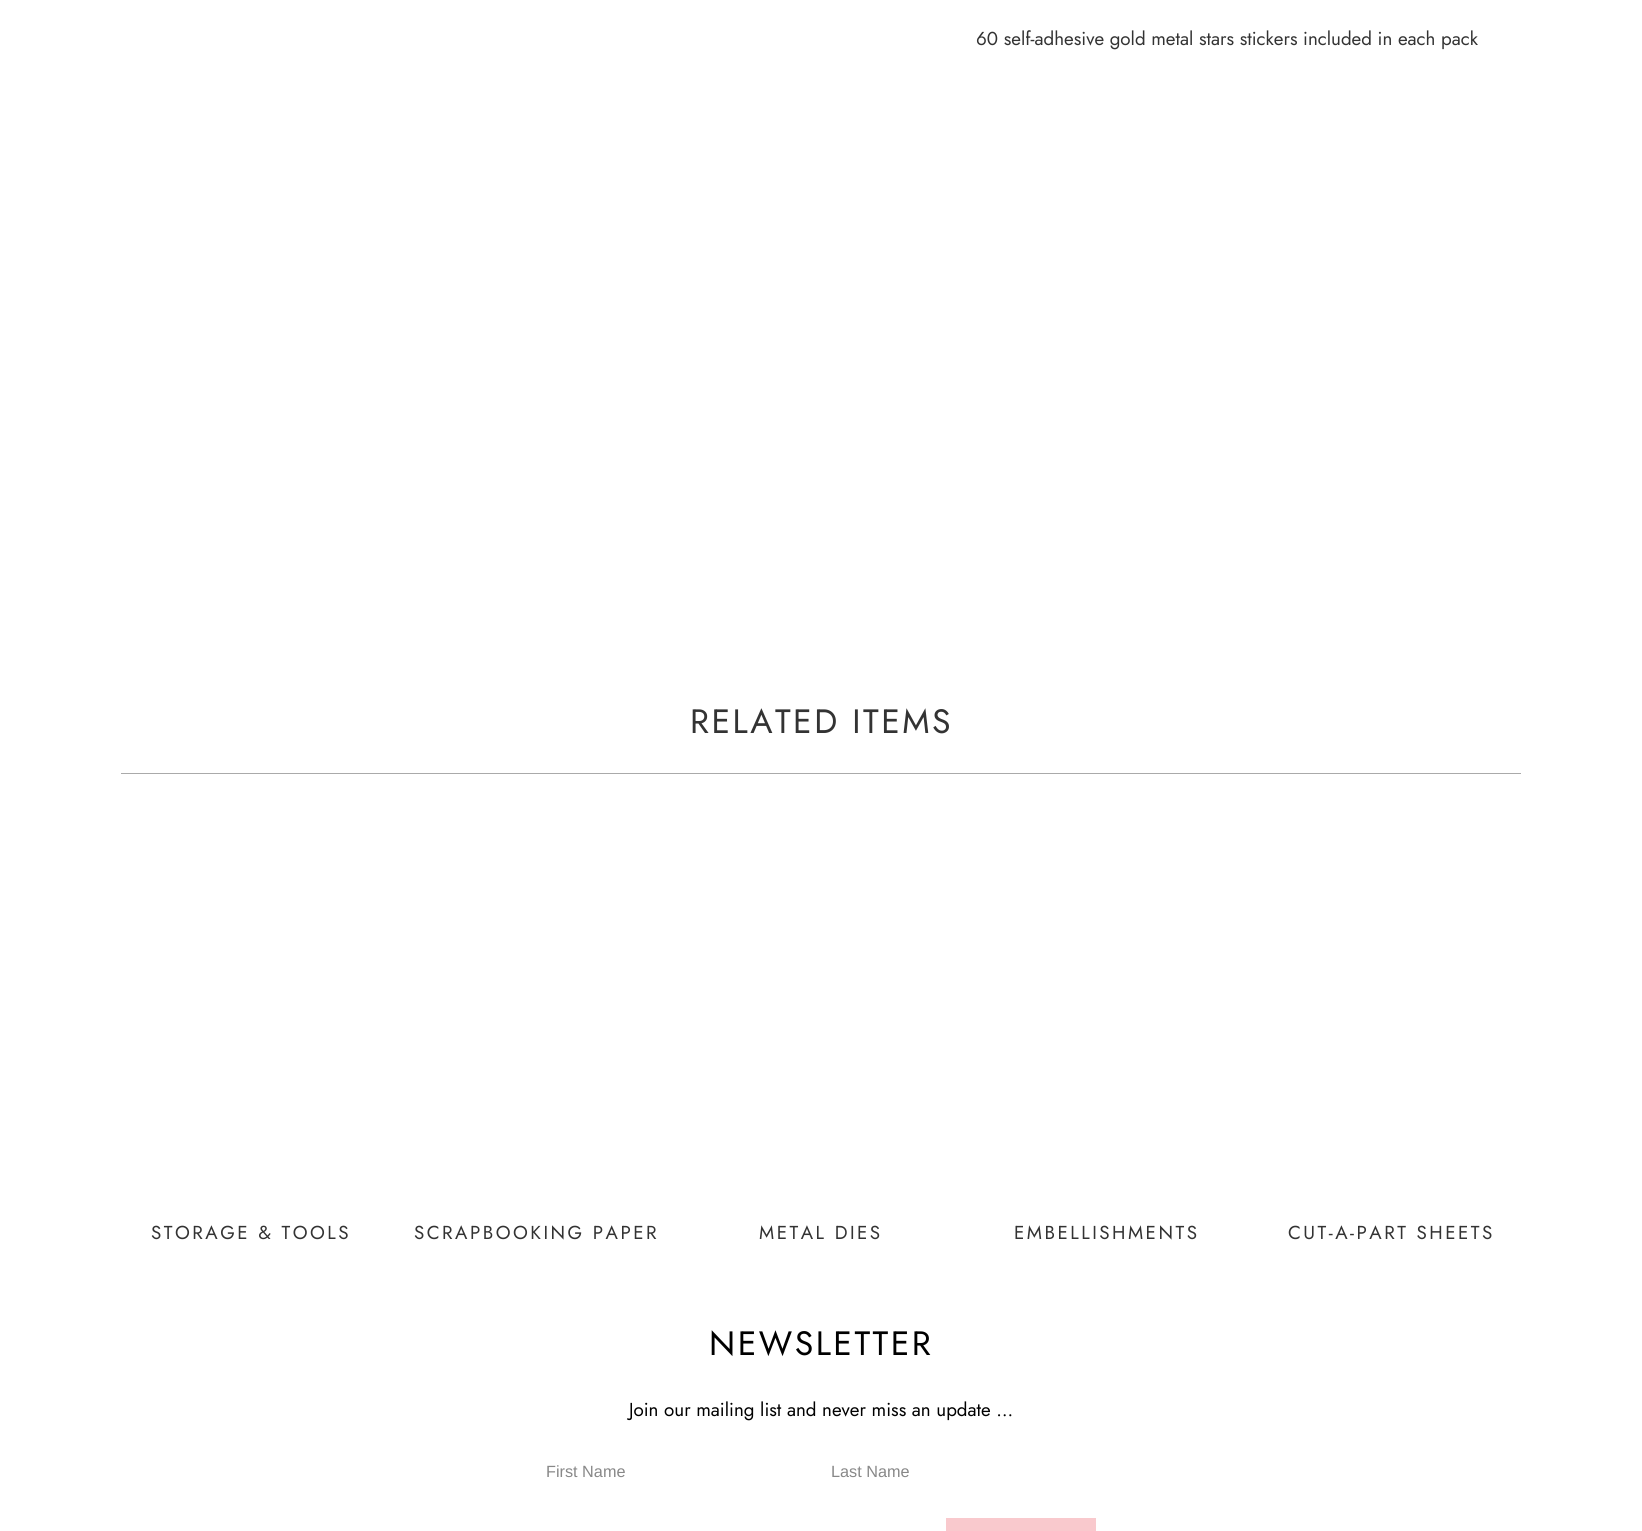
import math
import cairo


def use_color(cr, r, g, b):
  cr.set_source_rgb(r / 255, g / 255, b / 255)

def text(cr, x, y, s, family, size, color, bold=False, italic=False):
  cr.select_font_face(family, cairo.FONT_SLANT_ITALIC if italic else cairo.FONT_SLANT_NORMAL, cairo.FONT_WEIGHT_BOLD if bold else cairo.FONT_WEIGHT_NORMAL)
  cr.set_font_size(size)
  use_color(cr, *color)
  cr.move_to(x, y)
  cr.show_text(s)

def spaced_text(cr, x, y, s, letter, word):
  cr.move_to(x, y)
  for ch in s:
    cr.show_text(ch)
    cr.rel_move_to(letter + word * (ch == ' '), 0)

def box(cr, x, y, w, h, *color):
  use_color(cr, *color)
  cr.rectangle(x, y, w, h)
  cr.fill()

def draw(cr):
  use_color(cr, 255, 255, 255)
  cr.paint()
  box(cr, 121, 773, 1400, 1, 170, 170, 170)
  box(cr, 946, 1518, 150, 13, 249, 201, 205)
  text(cr, 976, 45, "60 self-adhesive gold metal stars stickers included in each pack", "Jost", 18.75, (51, 51, 51))
  cr.set_font_size(33.75)
  spaced_text(cr, 690, 733, "RELATED ITEMS", 2.5, 0)
  cr.set_font_size(18.75)
  spaced_text(cr, 151, 1239, "STORAGE & TOOLS", 2.5, 0)
  spaced_text(cr, 414, 1239, "SCRAPBOOKING PAPER", 2.5, 0)
  spaced_text(cr, 759, 1239, "METAL DIES", 2.5, 0)
  spaced_text(cr, 1014, 1239, "EMBELLISHMENTS", 2.5, 0)
  spaced_text(cr, 1288, 1239, "CUT-A-PART SHEETS", 2.5, 0)
  cr.set_font_size(33.75)
  use_color(cr, 0, 0, 0)
  spaced_text(cr, 709, 1355, "NEWSLETTER", 2.5, 0)
  text(cr, 629, 1416, "Join our mailing list and never miss an update …", "Jost", 18.75, (0, 0, 0))
  text(cr, 546, 1477, "First Name", "Liberation Sans", 16.25, (136, 136, 136))
  text(cr, 831, 1477, "Last Name", "Liberation Sans", 16.25, (136, 136, 136))


surface = cairo.ImageSurface(cairo.FORMAT_RGB24, 1642, 1531)
cr = cairo.Context(surface)
options = cairo.FontOptions()
options.set_hint_metrics(cairo.HINT_METRICS_OFF)
options.set_hint_style(cairo.HINT_STYLE_NONE)
cr.set_font_options(options)
cr.set_miter_limit(4)
draw(cr)
surface.write_to_png("out.png")
